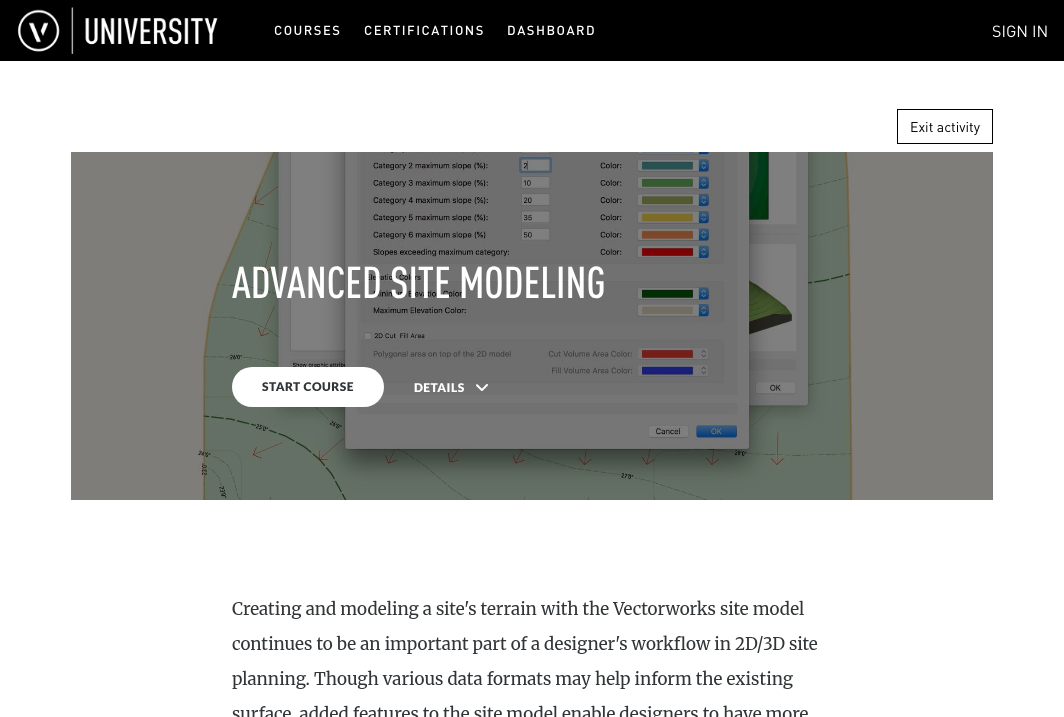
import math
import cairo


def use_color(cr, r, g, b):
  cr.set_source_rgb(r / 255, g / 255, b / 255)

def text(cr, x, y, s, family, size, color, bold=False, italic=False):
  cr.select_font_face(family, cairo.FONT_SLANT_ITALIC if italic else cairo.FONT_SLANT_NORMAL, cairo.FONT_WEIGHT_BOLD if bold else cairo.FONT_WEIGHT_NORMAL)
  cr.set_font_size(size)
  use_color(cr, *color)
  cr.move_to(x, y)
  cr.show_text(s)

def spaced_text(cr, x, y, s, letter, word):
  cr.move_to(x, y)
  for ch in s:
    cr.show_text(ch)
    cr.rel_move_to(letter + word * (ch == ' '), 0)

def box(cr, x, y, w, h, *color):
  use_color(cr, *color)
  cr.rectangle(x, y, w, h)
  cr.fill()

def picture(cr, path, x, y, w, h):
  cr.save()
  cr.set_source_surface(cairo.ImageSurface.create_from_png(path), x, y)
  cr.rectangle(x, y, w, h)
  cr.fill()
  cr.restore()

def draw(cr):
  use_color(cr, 255, 255, 255)
  cr.paint()
  box(cr, 0, 0, 1064, 61, 0, 0, 0)
  picture(cr, "img_01.png", 17, 7, 201, 47)
  cr.rectangle(897.5, 109.5, 95, 34)
  cr.set_line_width(1)
  cr.stroke()
  picture(cr, "img_02.png", 71, 152, 922, 565)
  cr.select_font_face("DIN Medium")
  cr.set_font_size(13)
  use_color(cr, 255, 255, 255)
  spaced_text(cr, 274, 35, "COURSES", 1.5, 0)
  spaced_text(cr, 364, 35, "CERTIFICATIONS", 1.5, 0)
  spaced_text(cr, 507, 35, "DASHBOARD", 1.5, 0)
  text(cr, 992, 37, "SIGN IN", "DIN", 16, (255, 255, 255))
  text(cr, 910, 132, "Exit activity", "DIN", 14, (0, 0, 0))


surface = cairo.ImageSurface(cairo.FORMAT_RGB24, 1064, 717)
cr = cairo.Context(surface)
options = cairo.FontOptions()
options.set_hint_metrics(cairo.HINT_METRICS_OFF)
options.set_hint_style(cairo.HINT_STYLE_NONE)
cr.set_font_options(options)
cr.set_miter_limit(4)
draw(cr)
surface.write_to_png("out.png")
